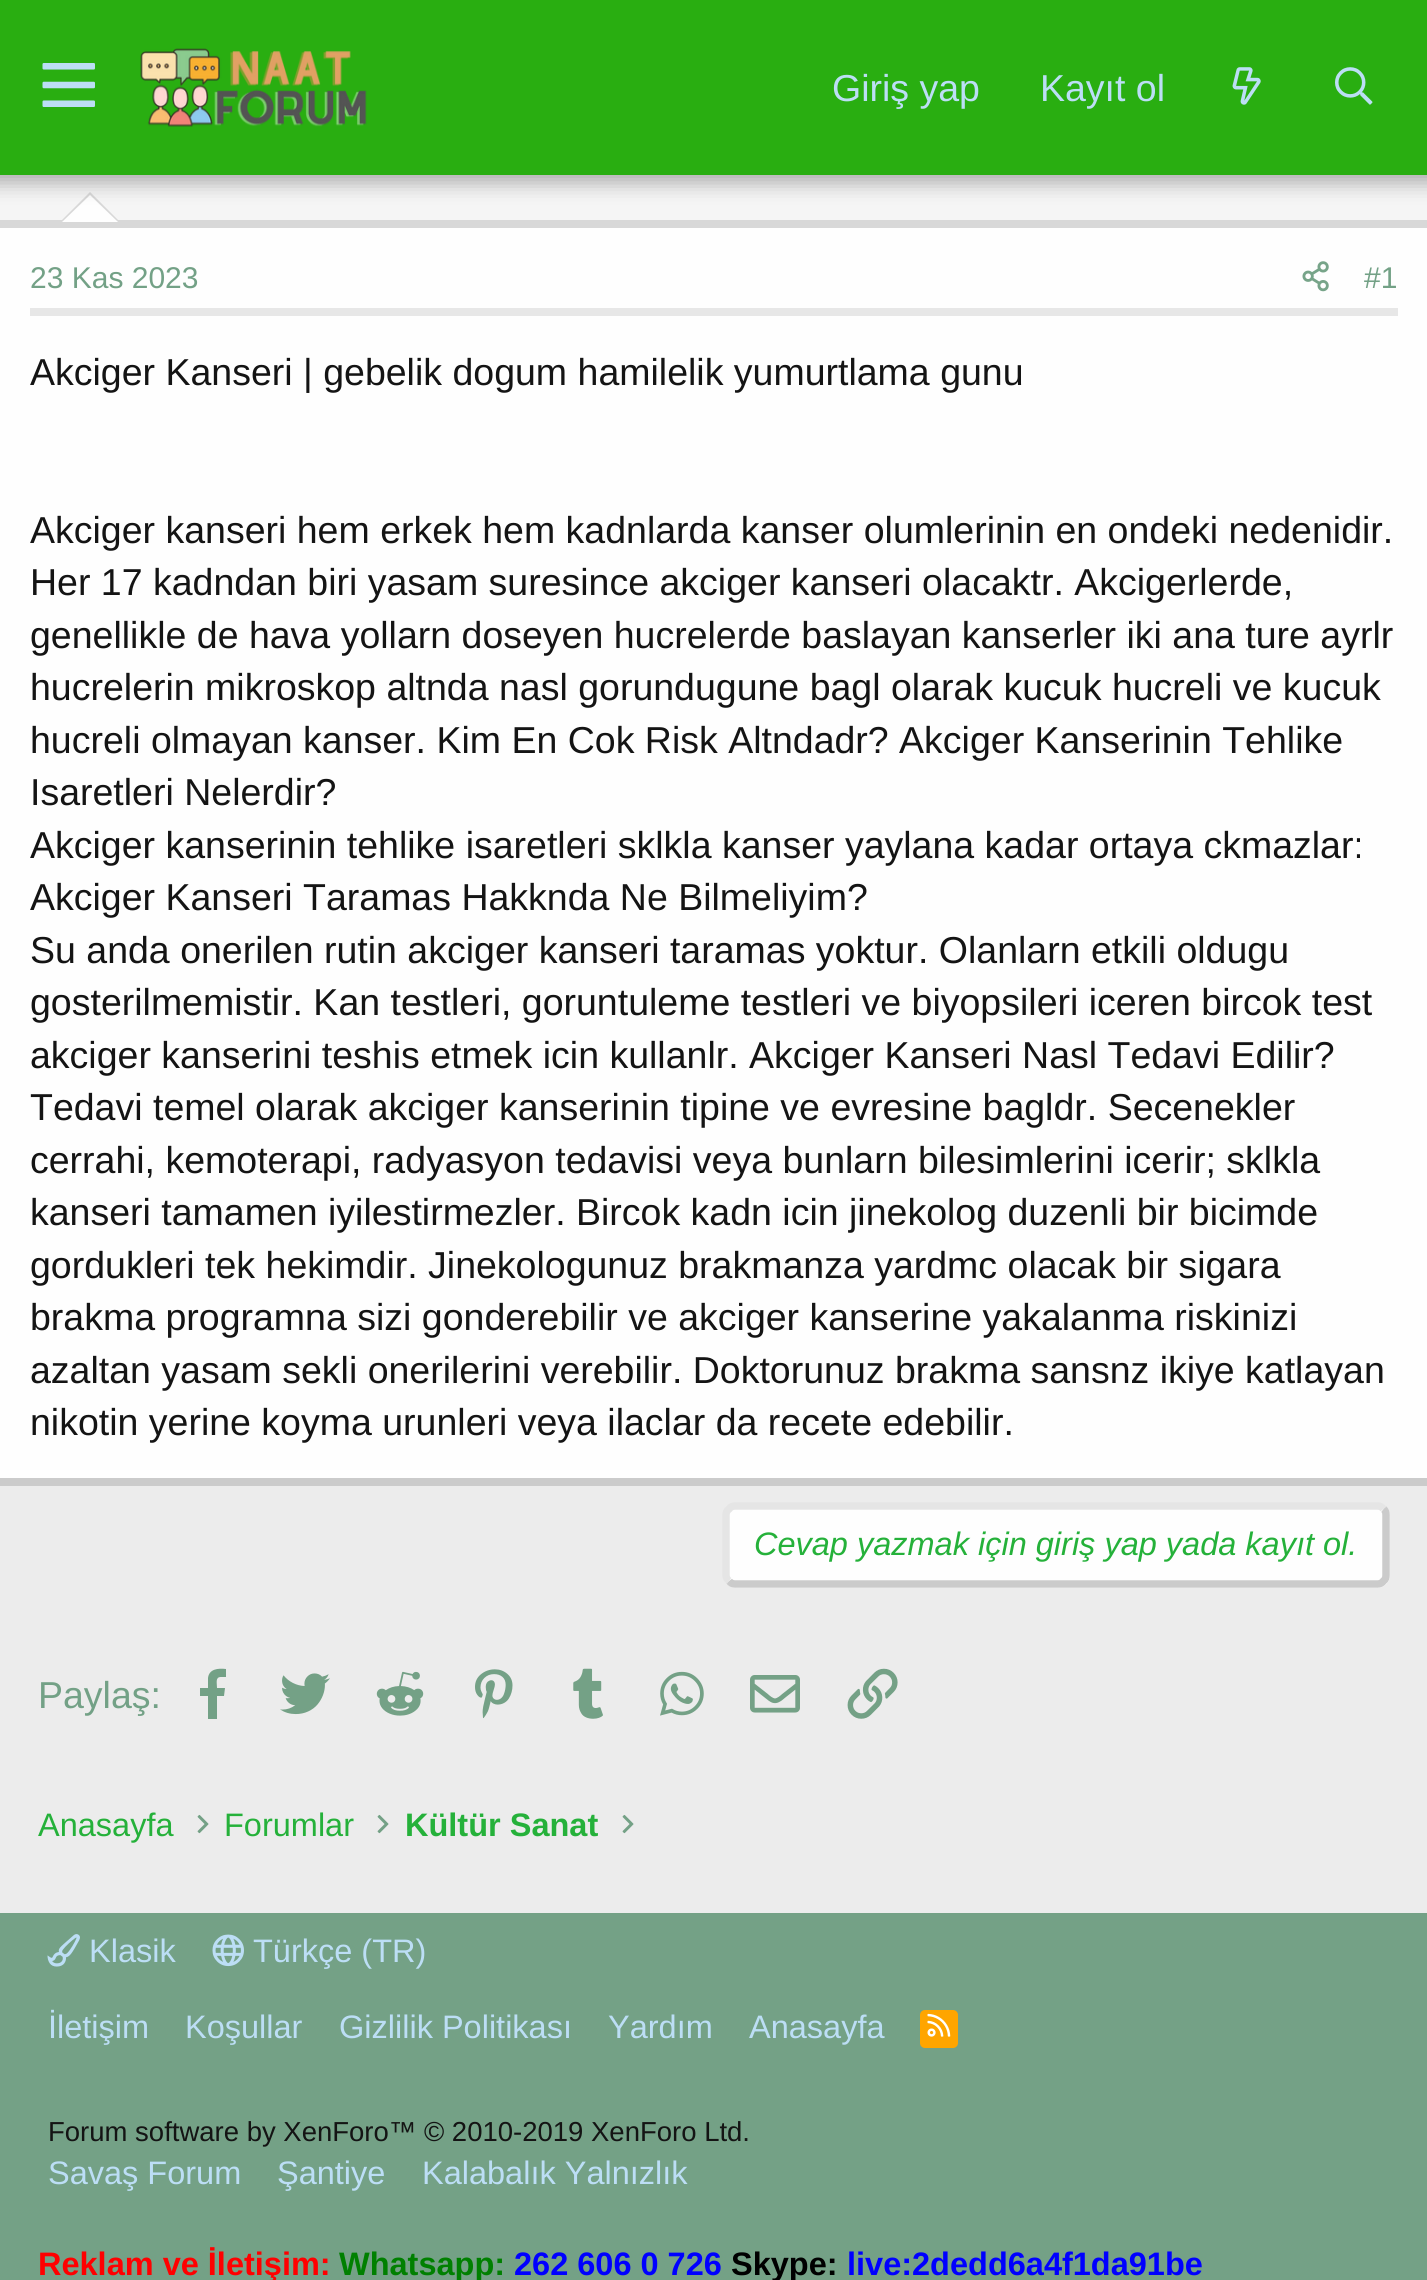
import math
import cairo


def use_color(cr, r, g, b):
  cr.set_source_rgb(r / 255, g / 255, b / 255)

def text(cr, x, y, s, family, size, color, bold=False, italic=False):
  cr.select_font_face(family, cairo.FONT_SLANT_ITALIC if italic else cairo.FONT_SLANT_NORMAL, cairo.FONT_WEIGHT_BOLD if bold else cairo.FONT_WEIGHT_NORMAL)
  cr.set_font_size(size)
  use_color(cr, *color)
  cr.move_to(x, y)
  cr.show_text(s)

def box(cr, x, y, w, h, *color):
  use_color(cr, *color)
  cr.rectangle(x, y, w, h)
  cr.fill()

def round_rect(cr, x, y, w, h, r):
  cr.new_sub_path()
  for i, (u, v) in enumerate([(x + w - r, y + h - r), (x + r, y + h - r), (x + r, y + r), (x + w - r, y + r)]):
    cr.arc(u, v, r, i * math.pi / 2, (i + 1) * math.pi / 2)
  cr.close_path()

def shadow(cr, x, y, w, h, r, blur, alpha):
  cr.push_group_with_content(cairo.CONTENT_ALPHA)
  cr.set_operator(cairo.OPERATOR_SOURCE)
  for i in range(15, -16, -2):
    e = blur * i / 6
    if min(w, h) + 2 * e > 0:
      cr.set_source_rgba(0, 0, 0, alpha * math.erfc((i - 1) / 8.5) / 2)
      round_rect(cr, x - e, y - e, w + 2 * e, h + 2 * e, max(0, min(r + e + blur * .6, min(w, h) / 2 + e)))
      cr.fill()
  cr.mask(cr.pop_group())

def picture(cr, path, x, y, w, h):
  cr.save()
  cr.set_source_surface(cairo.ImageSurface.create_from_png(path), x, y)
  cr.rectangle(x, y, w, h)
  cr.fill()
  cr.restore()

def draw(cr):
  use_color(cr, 236, 236, 236)
  cr.paint()
  box(cr, 0, 175, 1427, 45, 245, 245, 245)
  box(cr, 0, 220, 1427, 8, 216, 216, 216)
  cr.new_path()
  cr.move_to(120, 222)
  cr.line_to(60, 222)
  cr.line_to(90, 192)
  cr.close_path()
  cr.fill()
  use_color(cr, 254, 254, 254)
  cr.new_path()
  cr.move_to(118, 222)
  cr.line_to(62, 222)
  cr.line_to(90, 195)
  cr.close_path()
  cr.fill()
  use_color(cr, 0, 0, 0)
  shadow(cr, -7, -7, 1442, 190, 0, 10, 0.3)
  box(cr, 0, 0, 1427, 175, 41, 174, 17)
  picture(cr, "img_01.png", 42, 63, 53, 44)
  picture(cr, "img_02.png", 140, 48, 227, 79)
  picture(cr, "img_03.png", 1232, 67, 29, 38)
  picture(cr, "img_04.png", 1335, 67, 38, 38)
  box(cr, 0, 228, 1427, 1250, 254, 254, 254)
  box(cr, 0, 1478, 1427, 8, 203, 203, 203)
  box(cr, 30, 308, 1368, 8, 231, 231, 231)
  picture(cr, "img_05.png", 1302, 261, 27, 31)
  use_color(cr, 254, 254, 254)
  round_rect(cr, 723, 1503, 667, 85, 13)
  cr.fill()
  cr.new_path()
  cr.move_to(1383.5, 1509)
  cr.curve_to(1385.5, 1510.5, 1386, 1512.5, 1386, 1515)
  cr.line_to(1386, 1575)
  cr.curve_to(1386, 1577.5, 1385.5, 1579.5, 1383.5, 1581)
  cr.curve_to(1382, 1583, 1380, 1584, 1377.5, 1584)
  cr.line_to(735, 1584)
  cr.curve_to(732.5, 1584, 730.5, 1583, 729, 1581)
  use_color(cr, 203, 203, 203)
  cr.set_line_width(7.5)
  cr.stroke()
  cr.new_path()
  cr.move_to(729, 1581)
  cr.curve_to(727, 1579.5, 726, 1577.5, 726, 1575)
  cr.line_to(726, 1515)
  cr.curve_to(726, 1512.5, 727, 1510.5, 729, 1509)
  cr.curve_to(730.5, 1507, 732.5, 1506, 735, 1506)
  cr.line_to(1377.5, 1506)
  cr.curve_to(1380, 1506, 1382, 1507, 1383.5, 1509)
  use_color(cr, 229, 229, 229)
  cr.stroke()
  use_color(cr, 115, 161, 134)
  cr.new_path()
  cr.move_to(221, 1677)
  cr.curve_to(215, 1677, 217, 1683, 217, 1688)
  cr.line_to(225, 1688)
  cr.line_to(224, 1696)
  cr.line_to(217, 1696)
  cr.line_to(217, 1719)
  cr.line_to(208, 1719)
  cr.line_to(208, 1696)
  cr.line_to(200, 1696)
  cr.line_to(200, 1688)
  cr.line_to(208, 1688)
  cr.line_to(208, 1678)
  cr.curve_to(209, 1669, 218, 1668, 226, 1669)
  cr.line_to(226, 1677)
  cr.close_path()
  cr.fill()
  picture(cr, "img_06.png", 280, 1673, 50, 42)
  picture(cr, "img_07.png", 376, 1671, 48, 45)
  picture(cr, "img_08.png", 475, 1669, 38, 50)
  picture(cr, "img_09.png", 573, 1668, 30, 51)
  picture(cr, "img_10.png", 660, 1671, 44, 45)
  picture(cr, "img_11.png", 750, 1675, 50, 38)
  picture(cr, "img_12.png", 847, 1668, 51, 51)
  picture(cr, "img_13.png", 197, 1814, 12, 20)
  picture(cr, "img_13.png", 377, 1814, 12, 20)
  picture(cr, "img_13.png", 622, 1814, 12, 20)
  box(cr, 0, 1913, 1427, 367, 116, 161, 134)
  picture(cr, "img_14.png", 47, 1934, 33, 33)
  picture(cr, "img_15.png", 212, 1934, 32, 33)
  use_color(cr, 255, 165, 0)
  round_rect(cr, 920, 2010, 38, 38, 5)
  cr.fill()
  picture(cr, "img_16.png", 927, 2013, 24, 24)
  text(cr, 832, 101, "Giriş yap", "Liberation Sans", 37.5, (188, 222, 245))
  text(cr, 1040, 101, "Kayıt ol", "Liberation Sans", 37.5, (188, 222, 245))
  text(cr, 30, 288, "23 Kas 2023", "Liberation Sans", 30, (115, 161, 134))
  text(cr, 1364, 288, "#1", "Liberation Sans", 30, (115, 161, 134))
  text(cr, 30, 385, "Akciger Kanseri | gebelik dogum hamilelik yumurtlama gunu", "Liberation Sans", 37.5, (20, 20, 20))
  text(cr, 30, 543, "Akciger kanseri hem erkek hem kadnlarda kanser olumlerinin en ondeki nedenidir.", "Liberation Sans", 37.5, (20, 20, 20))
  text(cr, 30, 595, "Her 17 kadndan biri yasam suresince akciger kanseri olacaktr. Akcigerlerde,", "Liberation Sans", 37.5, (20, 20, 20))
  text(cr, 30, 648, "genellikle de hava yollarn doseyen hucrelerde baslayan kanserler iki ana ture ayrlr", "Liberation Sans", 37.5, (20, 20, 20))
  text(cr, 30, 700, "hucrelerin mikroskop altnda nasl gorundugune bagl olarak kucuk hucreli ve kucuk", "Liberation Sans", 37.5, (20, 20, 20))
  text(cr, 30, 753, "hucreli olmayan kanser. Kim En Cok Risk Altndadr? Akciger Kanserinin Tehlike", "Liberation Sans", 37.5, (20, 20, 20))
  text(cr, 30, 805, "Isaretleri Nelerdir?", "Liberation Sans", 37.5, (20, 20, 20))
  text(cr, 30, 858, "Akciger kanserinin tehlike isaretleri sklkla kanser yaylana kadar ortaya ckmazlar:", "Liberation Sans", 37.5, (20, 20, 20))
  text(cr, 30, 910, "Akciger Kanseri Taramas Hakknda Ne Bilmeliyim?", "Liberation Sans", 37.5, (20, 20, 20))
  text(cr, 30, 963, "Su anda onerilen rutin akciger kanseri taramas yoktur. Olanlarn etkili oldugu", "Liberation Sans", 37.5, (20, 20, 20))
  text(cr, 30, 1015, "gosterilmemistir. Kan testleri, goruntuleme testleri ve biyopsileri iceren bircok test", "Liberation Sans", 37.5, (20, 20, 20))
  text(cr, 30, 1068, "akciger kanserini teshis etmek icin kullanlr. Akciger Kanseri Nasl Tedavi Edilir?", "Liberation Sans", 37.5, (20, 20, 20))
  text(cr, 30, 1120, "Tedavi temel olarak akciger kanserinin tipine ve evresine bagldr. Secenekler", "Liberation Sans", 37.5, (20, 20, 20))
  text(cr, 30, 1173, "cerrahi, kemoterapi, radyasyon tedavisi veya bunlarn bilesimlerini icerir; sklkla", "Liberation Sans", 37.5, (20, 20, 20))
  text(cr, 30, 1225, "kanseri tamamen iyilestirmezler. Bircok kadn icin jinekolog duzenli bir bicimde", "Liberation Sans", 37.5, (20, 20, 20))
  text(cr, 30, 1278, "gordukleri tek hekimdir. Jinekologunuz brakmanza yardmc olacak bir sigara", "Liberation Sans", 37.5, (20, 20, 20))
  text(cr, 30, 1330, "brakma programna sizi gonderebilir ve akciger kanserine yakalanma riskinizi", "Liberation Sans", 37.5, (20, 20, 20))
  text(cr, 30, 1383, "azaltan yasam sekli onerilerini verebilir. Doktorunuz brakma sansnz ikiye katlayan", "Liberation Sans", 37.5, (20, 20, 20))
  text(cr, 30, 1435, "nikotin yerine koyma urunleri veya ilaclar da recete edebilir.", "Liberation Sans", 37.5, (20, 20, 20))
  text(cr, 754, 1555, "Cevap yazmak için giriş yap yada kayıt ol.", "Liberation Sans", 32.5, (37, 177, 58), italic=True)
  text(cr, 38, 1708, "Paylaş:", "Liberation Sans", 37.5, (115, 161, 134))
  text(cr, 38, 1836, "Anasayfa", "Liberation Sans", 32.5, (37, 177, 58))
  text(cr, 224, 1836, "Forumlar", "Liberation Sans", 32.5, (37, 177, 58))
  text(cr, 405, 1836, "Kültür Sanat", "Liberation Sans", 32.5, (37, 177, 58), bold=True)
  text(cr, 89, 1962, "Klasik", "Liberation Sans", 32.5, (188, 222, 245))
  text(cr, 253, 1962, "Türkçe (TR)", "Liberation Sans", 32.5, (188, 222, 245))
  text(cr, 48, 2038, "İletişim", "Liberation Sans", 32.5, (188, 222, 245))
  text(cr, 185, 2038, "Koşullar", "Liberation Sans", 32.5, (188, 222, 245))
  text(cr, 339, 2038, "Gizlilik Politikası", "Liberation Sans", 32.5, (188, 222, 245))
  text(cr, 608, 2038, "Yardım", "Liberation Sans", 32.5, (188, 222, 245))
  text(cr, 749, 2038, "Anasayfa", "Liberation Sans", 32.5, (188, 222, 245))
  text(cr, 48, 2141, "Forum software by XenForo™ © 2010-2019 XenForo Ltd.", "Liberation Sans", 27.5, (20, 20, 20))
  text(cr, 48, 2184, "Savaş Forum", "Liberation Sans", 32.5, (188, 222, 245))
  text(cr, 277, 2184, "Şantiye", "Liberation Sans", 32.5, (188, 222, 245))
  text(cr, 422, 2184, "Kalabalık Yalnızlık", "Liberation Sans", 32.5, (188, 222, 245))
  text(cr, 38, 2275, "Reklam ve İletişim:", "Liberation Sans", 32.5, (255, 0, 0), bold=True)
  text(cr, 339, 2275, "Whatsapp:", "Liberation Sans", 32.5, (0, 128, 0), bold=True)
  text(cr, 514, 2275, "262 606 0 726", "Liberation Sans", 32.5, (0, 0, 255), bold=True)
  text(cr, 731, 2275, "Skype:", "Liberation Sans", 32.5, (0, 0, 0), bold=True)
  text(cr, 847, 2275, "live:2dedd6a4f1da91be", "Liberation Sans", 32.5, (0, 0, 255), bold=True)


surface = cairo.ImageSurface(cairo.FORMAT_RGB24, 1427, 2280)
cr = cairo.Context(surface)
options = cairo.FontOptions()
options.set_hint_metrics(cairo.HINT_METRICS_OFF)
options.set_hint_style(cairo.HINT_STYLE_NONE)
cr.set_font_options(options)
cr.set_miter_limit(4)
draw(cr)
surface.write_to_png("out.png")
